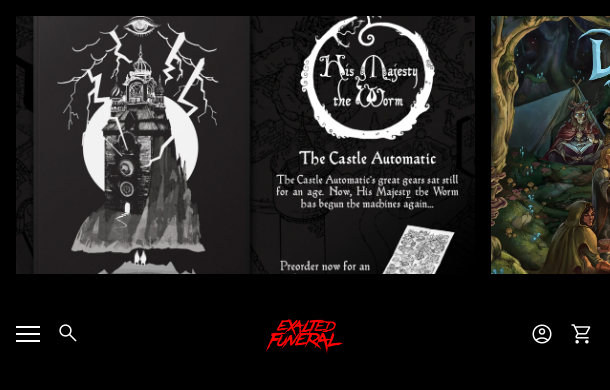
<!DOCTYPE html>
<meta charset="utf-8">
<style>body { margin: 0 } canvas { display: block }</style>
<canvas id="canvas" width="610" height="390"></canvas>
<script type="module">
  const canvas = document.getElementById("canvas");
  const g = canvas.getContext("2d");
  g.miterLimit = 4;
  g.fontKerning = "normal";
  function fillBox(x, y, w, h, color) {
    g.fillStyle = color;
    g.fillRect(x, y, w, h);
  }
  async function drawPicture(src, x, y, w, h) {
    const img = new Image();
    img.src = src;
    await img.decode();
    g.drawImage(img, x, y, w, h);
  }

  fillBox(0, 0, 610, 390, "#000000");
  await drawPicture("pic1.png", 16, 16, 459, 258);
  await drawPicture("pic2.png", 491, 16, 119, 258);
  fillBox(16, 326, 24, 2, "#FFFFFF");
  fillBox(16, 333, 24, 2, "#FFFFFF");
  fillBox(16, 340, 24, 2, "#FFFFFF");
  await drawPicture("pic3.png", 59, 324, 18, 18);
  await drawPicture("pic4.png", 266, 319, 78, 35);
  await drawPicture("pic5.png", 532, 324, 20, 20);
  await drawPicture("pic6.png", 571, 324, 20, 20);
</script>
